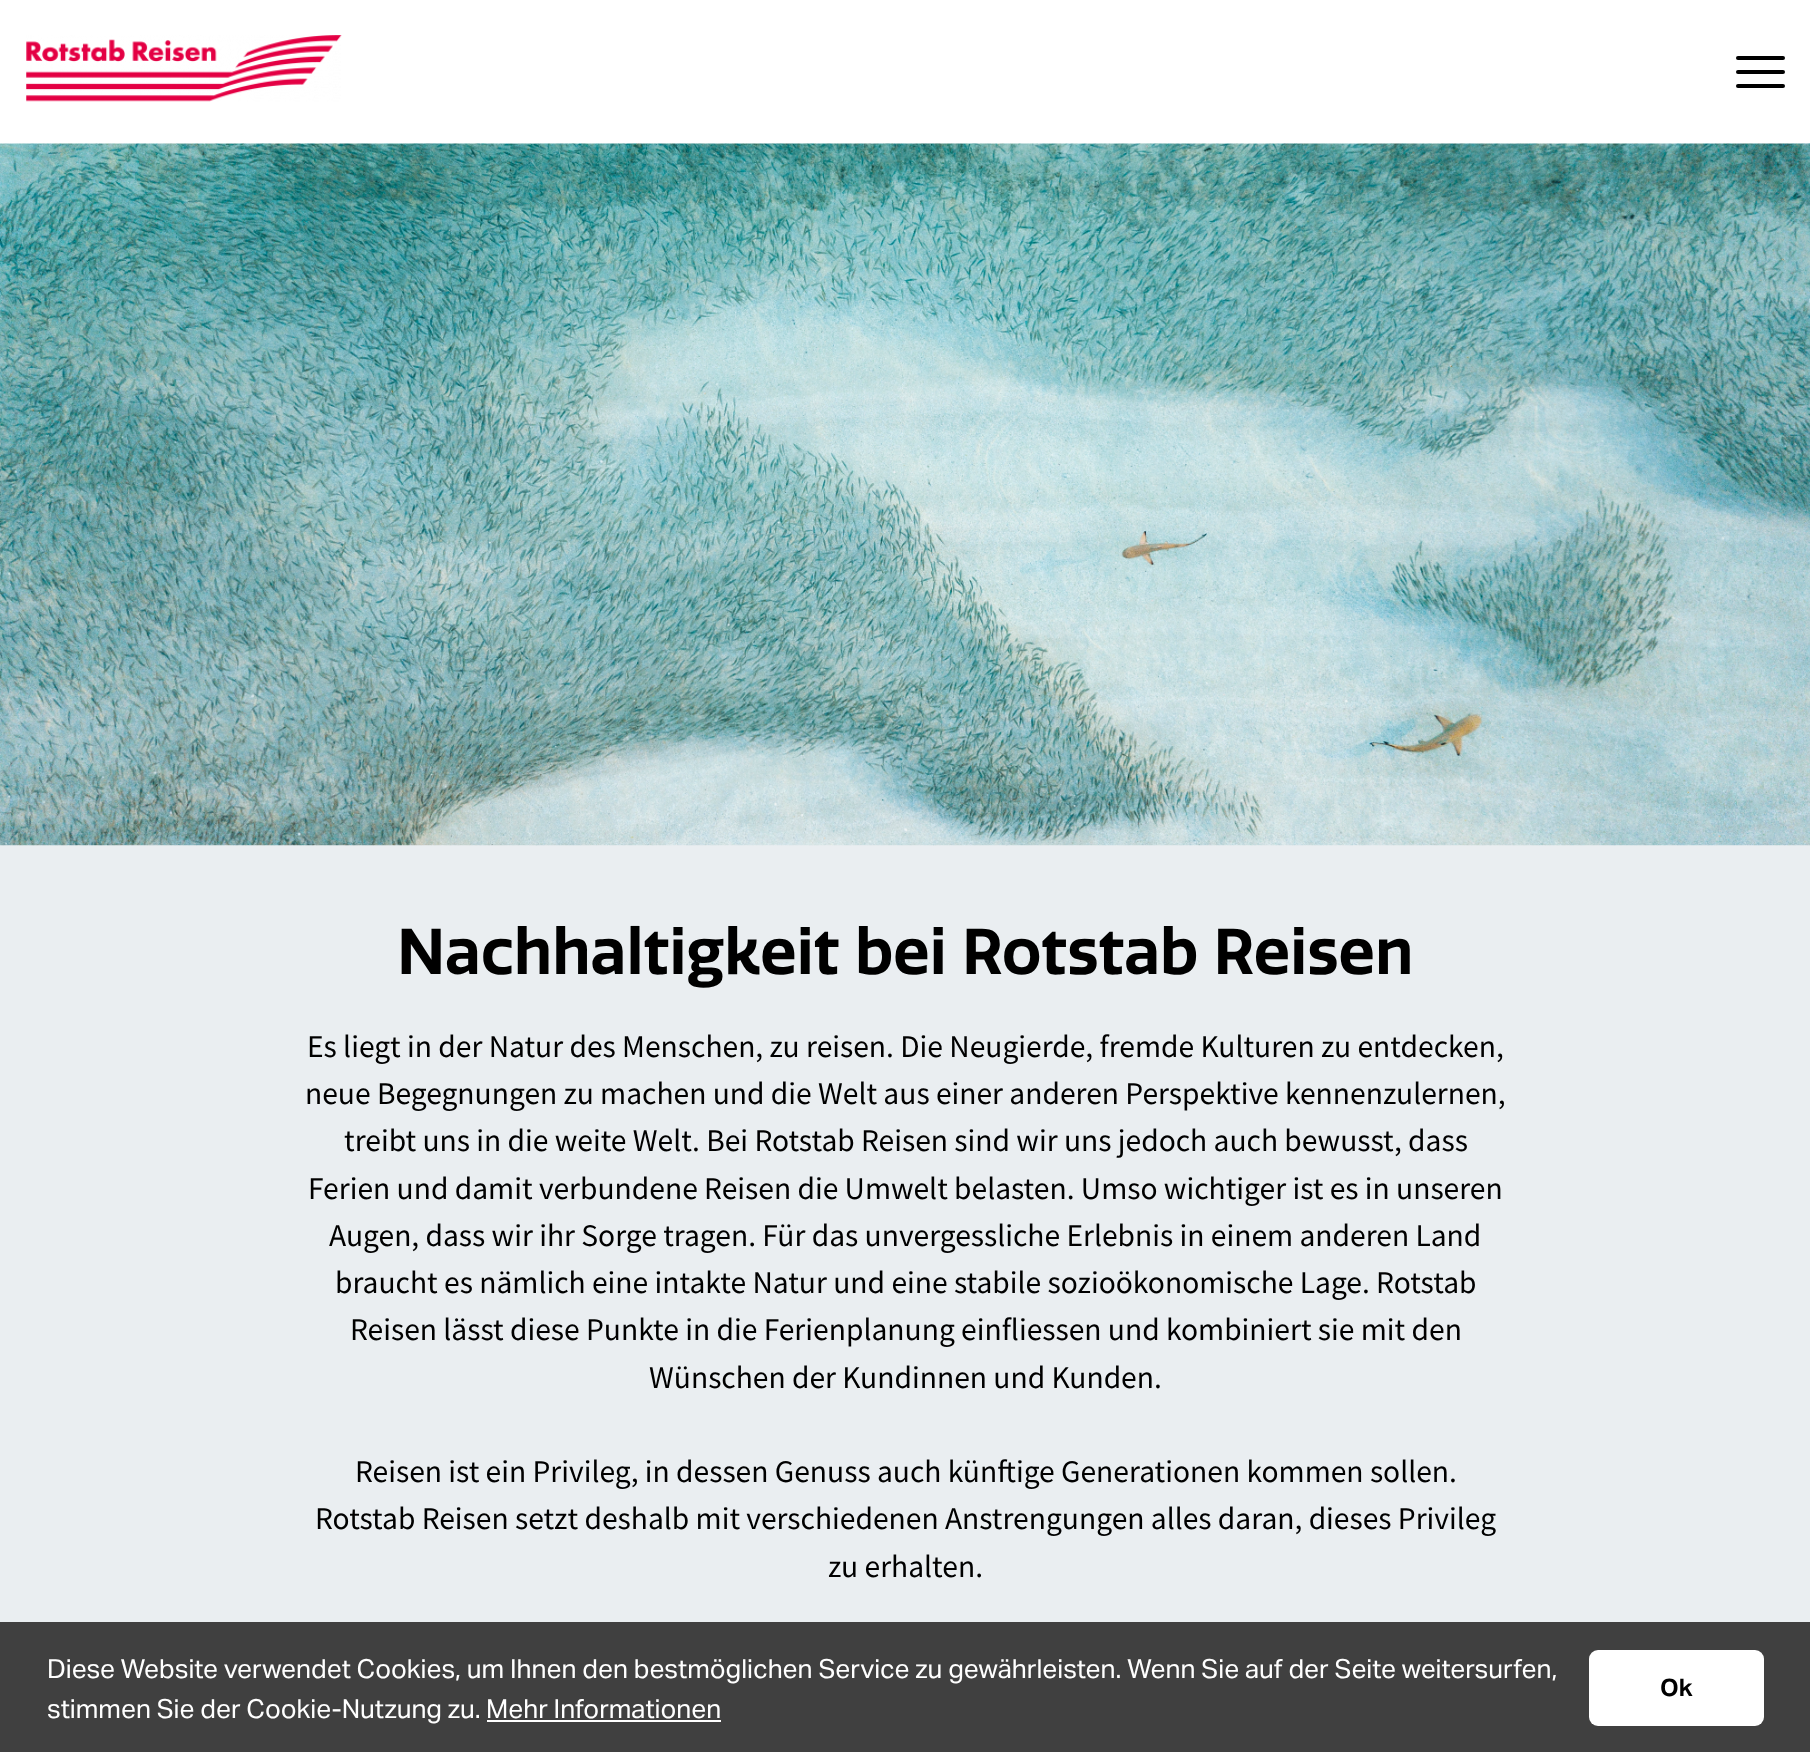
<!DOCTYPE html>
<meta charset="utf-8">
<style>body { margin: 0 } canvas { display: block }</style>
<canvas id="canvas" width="1810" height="1752"></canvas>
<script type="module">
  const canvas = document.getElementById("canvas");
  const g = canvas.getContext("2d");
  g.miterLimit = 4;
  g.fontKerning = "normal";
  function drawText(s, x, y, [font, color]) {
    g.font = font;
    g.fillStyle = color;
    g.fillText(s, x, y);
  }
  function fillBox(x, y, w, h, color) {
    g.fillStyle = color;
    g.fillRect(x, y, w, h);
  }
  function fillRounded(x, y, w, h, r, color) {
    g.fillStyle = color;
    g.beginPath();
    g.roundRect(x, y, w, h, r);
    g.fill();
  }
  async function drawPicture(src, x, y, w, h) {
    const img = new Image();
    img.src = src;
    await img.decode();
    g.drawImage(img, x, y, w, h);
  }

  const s1 = ["600 63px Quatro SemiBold", "#000000"];
  const s2 = ["31.5px Source Sans Pro", "#000000"];
  const s3 = ["26.25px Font", "#FFFFFF"];
  const s4 = ["bold 24px Font", "#000000"];

  fillBox(0, 0, 1810, 1752, "#FFFFFF");
  await drawPicture("pic1.png", 26, 35, 316, 67);
  fillRounded(1736, 56, 49, 4, 2, "#000000");
  fillRounded(1736, 70, 49, 4, 2, "#000000");
  fillRounded(1736, 84, 49, 4, 2, "#000000");
  fillBox(0, 845, 1810, 777, "#EAEEF1");
  await drawPicture("pic2.png", 0, 143, 1810, 703);
  drawText("Nachhaltigkeit bei Rotstab Reisen", 397, 974, s1);
  drawText("Es liegt in der Natur des Menschen, zu reisen. Die Neugierde, fremde Kulturen zu entdecken,", 307, 1057, s2);
  drawText("neue Begegnungen zu machen und die Welt aus einer anderen Perspektive kennenzulernen,", 305, 1104, s2);
  drawText("treibt uns in die weite Welt. Bei Rotstab Reisen sind wir uns jedoch auch bewusst, dass", 344, 1151, s2);
  drawText("Ferien und damit verbundene Reisen die Umwelt belasten. Umso wichtiger ist es in unseren", 308, 1199, s2);
  drawText("Augen, dass wir ihr Sorge tragen. Für das unvergessliche Erlebnis in einem anderen Land", 329, 1246, s2);
  drawText("braucht es nämlich eine intakte Natur und eine stabile sozioökonomische Lage. Rotstab", 335, 1293, s2);
  drawText("Reisen lässt diese Punkte in die Ferienplanung einfliessen und kombiniert sie mit den", 350, 1340, s2);
  drawText("Wünschen der Kundinnen und Kunden.", 649, 1388, s2);
  drawText("Reisen ist ein Privileg, in dessen Genuss auch künftige Generationen kommen sollen.", 355, 1482, s2);
  drawText("Rotstab Reisen setzt deshalb mit verschiedenen Anstrengungen alles daran, dieses Privileg", 315, 1529, s2);
  drawText("zu erhalten.", 828, 1577, s2);
  fillBox(0, 1622, 1810, 130, "#404040");
  drawText("Diese Website verwendet Cookies, um Ihnen den bestmöglichen Service zu gewährleisten. Wenn Sie auf der Seite weitersurfen,", 47, 1678, s3);
  drawText("stimmen Sie der Cookie-Nutzung zu.", 47, 1718, s3);
  drawText("Mehr Informationen", 486, 1718, s3);
  fillBox(487, 1720, 234, 2, "#FFFFFF");
  fillRounded(1589, 1650, 175, 76, 9, "#FFFFFF");
  drawText("Ok", 1660, 1696, s4);
</script>
